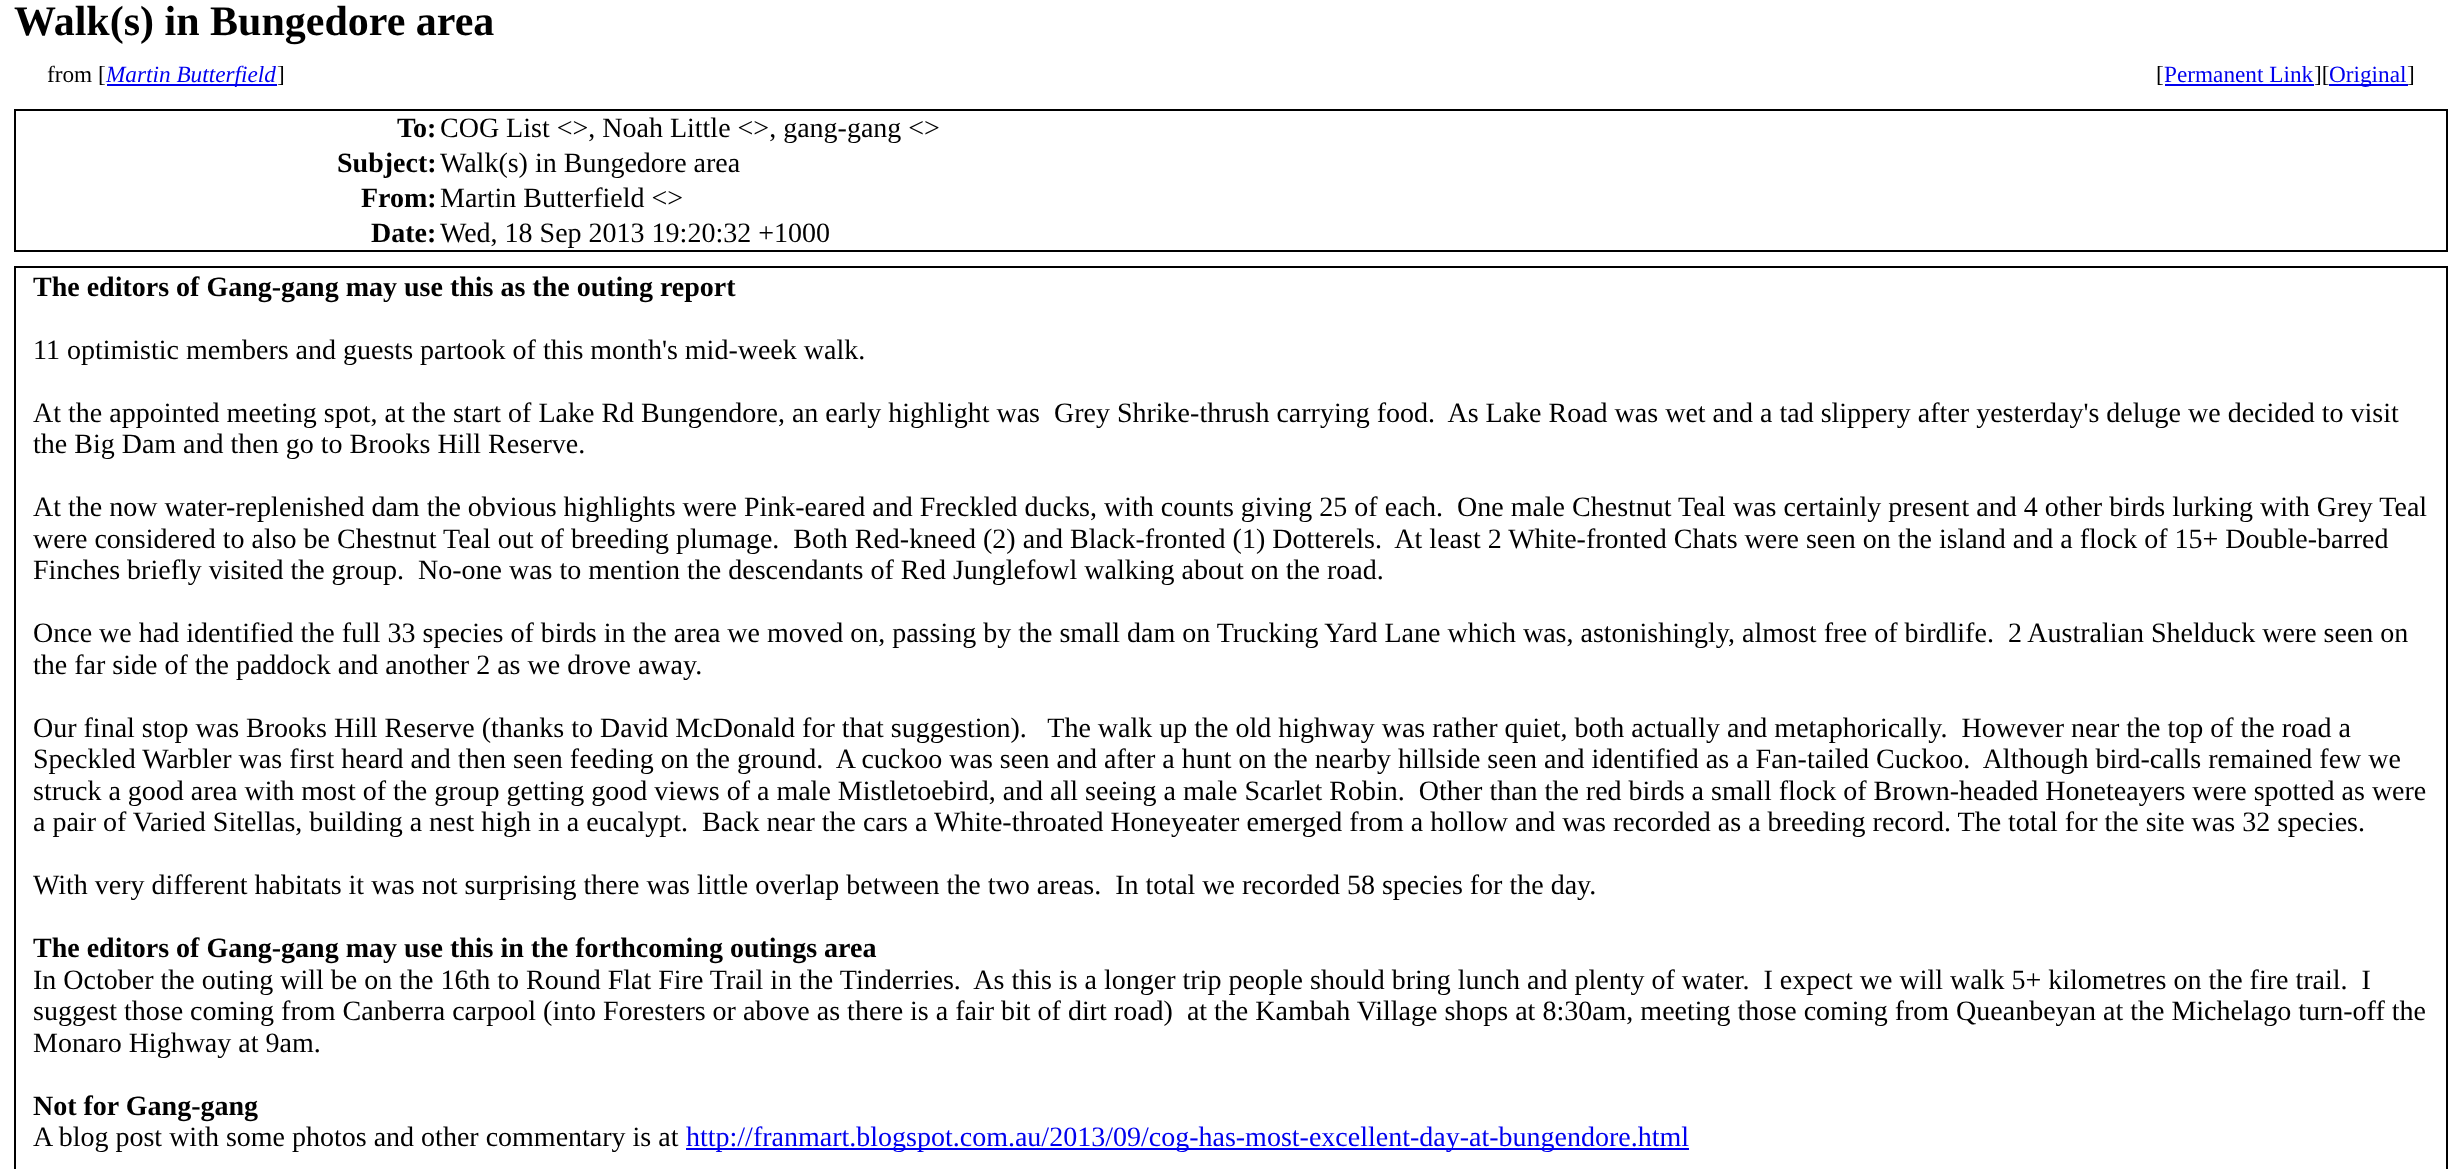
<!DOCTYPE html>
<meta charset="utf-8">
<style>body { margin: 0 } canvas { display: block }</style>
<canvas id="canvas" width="2462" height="1169"></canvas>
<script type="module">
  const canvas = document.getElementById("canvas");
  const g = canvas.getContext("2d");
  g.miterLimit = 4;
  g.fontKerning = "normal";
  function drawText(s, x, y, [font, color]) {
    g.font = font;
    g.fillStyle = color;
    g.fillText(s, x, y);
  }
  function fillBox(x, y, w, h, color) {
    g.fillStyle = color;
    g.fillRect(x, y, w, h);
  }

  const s1 = ["bold 42px Liberation Serif", "#000000"];
  const s2 = ["23.25px Liberation Serif", "#000000"];
  const s3 = ["italic 23.25px Liberation Serif", "#0000EE"];
  const s4 = ["23.25px Liberation Serif", "#0000EE"];
  const s5 = ["bold 28px Liberation Serif", "#000000"];
  const s6 = ["28px Liberation Serif", "#000000"];
  const s7 = ["28px Liberation Serif", "#0000EE"];

  fillBox(0, 0, 2462, 1169, "#FFFFFF");
  drawText("Walk(s) in Bungedore area", 14, 35, s1);
  drawText("from [", 47, 82, s2);
  fillBox(107, 84, 170, 2, "#0000EE");
  drawText("Martin Butterfield", 106, 82, s3);
  drawText("]", 277, 82, s2);
  drawText("[", 2156, 82, s2);
  drawText("Permanent Link", 2164, 82, s4);
  drawText("][", 2314, 82, s2);
  fillBox(2165, 84, 149, 2, "#0000EE");
  fillBox(2329, 84, 79, 2, "#0000EE");
  drawText("Original", 2329, 82, s4);
  drawText("]", 2407, 82, s2);
  g.strokeStyle = "#000000";
  g.lineWidth = 2;
  g.strokeRect(15, 110, 2432, 141);
  drawText("To:", 397, 137, s5);
  drawText("COG List <>, Noah Little <>, gang-gang <>", 440, 137, s6);
  drawText("Subject:", 337, 172, s5);
  drawText("Walk(s) in Bungedore area", 440, 172, s6);
  drawText("From:", 361, 207, s5);
  drawText("Martin Butterfield <>", 440, 207, s6);
  drawText("Date:", 371, 242, s5);
  drawText("Wed, 18 Sep 2013 19:20:32 +1000", 440, 242, s6);
  g.strokeRect(15, 267, 2432, 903);
  drawText("The editors of Gang-gang may use this as the outing report", 33, 296, s5);
  drawText("11 optimistic members and guests partook of this month's mid-week walk.", 33, 359, s6);
  drawText("At the appointed meeting spot, at the start of Lake Rd Bungendore, an early highlight was  Grey Shrike-thrush carrying food.  As Lake Road was wet and a tad slippery after yesterday's deluge we decided to visit", 33, 422, s6);
  drawText("the Big Dam and then go to Brooks Hill Reserve.", 33, 453, s6);
  drawText("At the now water-replenished dam the obvious highlights were Pink-eared and Freckled ducks, with counts giving 25 of each.  One male Chestnut Teal was certainly present and 4 other birds lurking with Grey Teal", 33, 516, s6);
  drawText("were considered to also be Chestnut Teal out of breeding plumage.  Both Red-kneed (2) and Black-fronted (1) Dotterels.  At least 2 White-fronted Chats were seen on the island and a flock of 15+ Double-barred", 33, 548, s6);
  drawText("Finches briefly visited the group.  No-one was to mention the descendants of Red Junglefowl walking about on the road.", 33, 579, s6);
  drawText("Once we had identified the full 33 species of birds in the area we moved on, passing by the small dam on Trucking Yard Lane which was, astonishingly, almost free of birdlife.  2 Australian Shelduck were seen on", 33, 642, s6);
  drawText("the far side of the paddock and another 2 as we drove away.", 33, 674, s6);
  drawText("Our final stop was Brooks Hill Reserve (thanks to David McDonald for that suggestion).   The walk up the old highway was rather quiet, both actually and metaphorically.  However near the top of the road a", 33, 737, s6);
  drawText("Speckled Warbler was first heard and then seen feeding on the ground.  A cuckoo was seen and after a hunt on the nearby hillside seen and identified as a Fan-tailed Cuckoo.  Although bird-calls remained few we", 33, 768, s6);
  drawText("struck a good area with most of the group getting good views of a male Mistletoebird, and all seeing a male Scarlet Robin.  Other than the red birds a small flock of Brown-headed Honeteayers were spotted as were", 33, 800, s6);
  drawText("a pair of Varied Sitellas, building a nest high in a eucalypt.  Back near the cars a White-throated Honeyeater emerged from a hollow and was recorded as a breeding record. The total for the site was 32 species.", 33, 831, s6);
  drawText("With very different habitats it was not surprising there was little overlap between the two areas.  In total we recorded 58 species for the day.", 33, 894, s6);
  drawText("The editors of Gang-gang may use this in the forthcoming outings area", 33, 957, s5);
  drawText("In October the outing will be on the 16th to Round Flat Fire Trail in the Tinderries.  As this is a longer trip people should bring lunch and plenty of water.  I expect we will walk 5+ kilometres on the fire trail.  I", 33, 989, s6);
  drawText("suggest those coming from Canberra carpool (into Foresters or above as there is a fair bit of dirt road)  at the Kambah Village shops at 8:30am, meeting those coming from Queanbeyan at the Michelago turn-off the", 33, 1020, s6);
  drawText("Monaro Highway at 9am.", 33, 1052, s6);
  drawText("Not for Gang-gang", 33, 1115, s5);
  drawText("A blog post with some photos and other commentary is at", 33, 1146, s6);
  fillBox(686, 1148, 1003, 2, "#0000EE");
  drawText("http://franmart.blogspot.com.au/2013/09/cog-has-most-excellent-day-at-bungendore.html", 686, 1146, s7);
</script>
